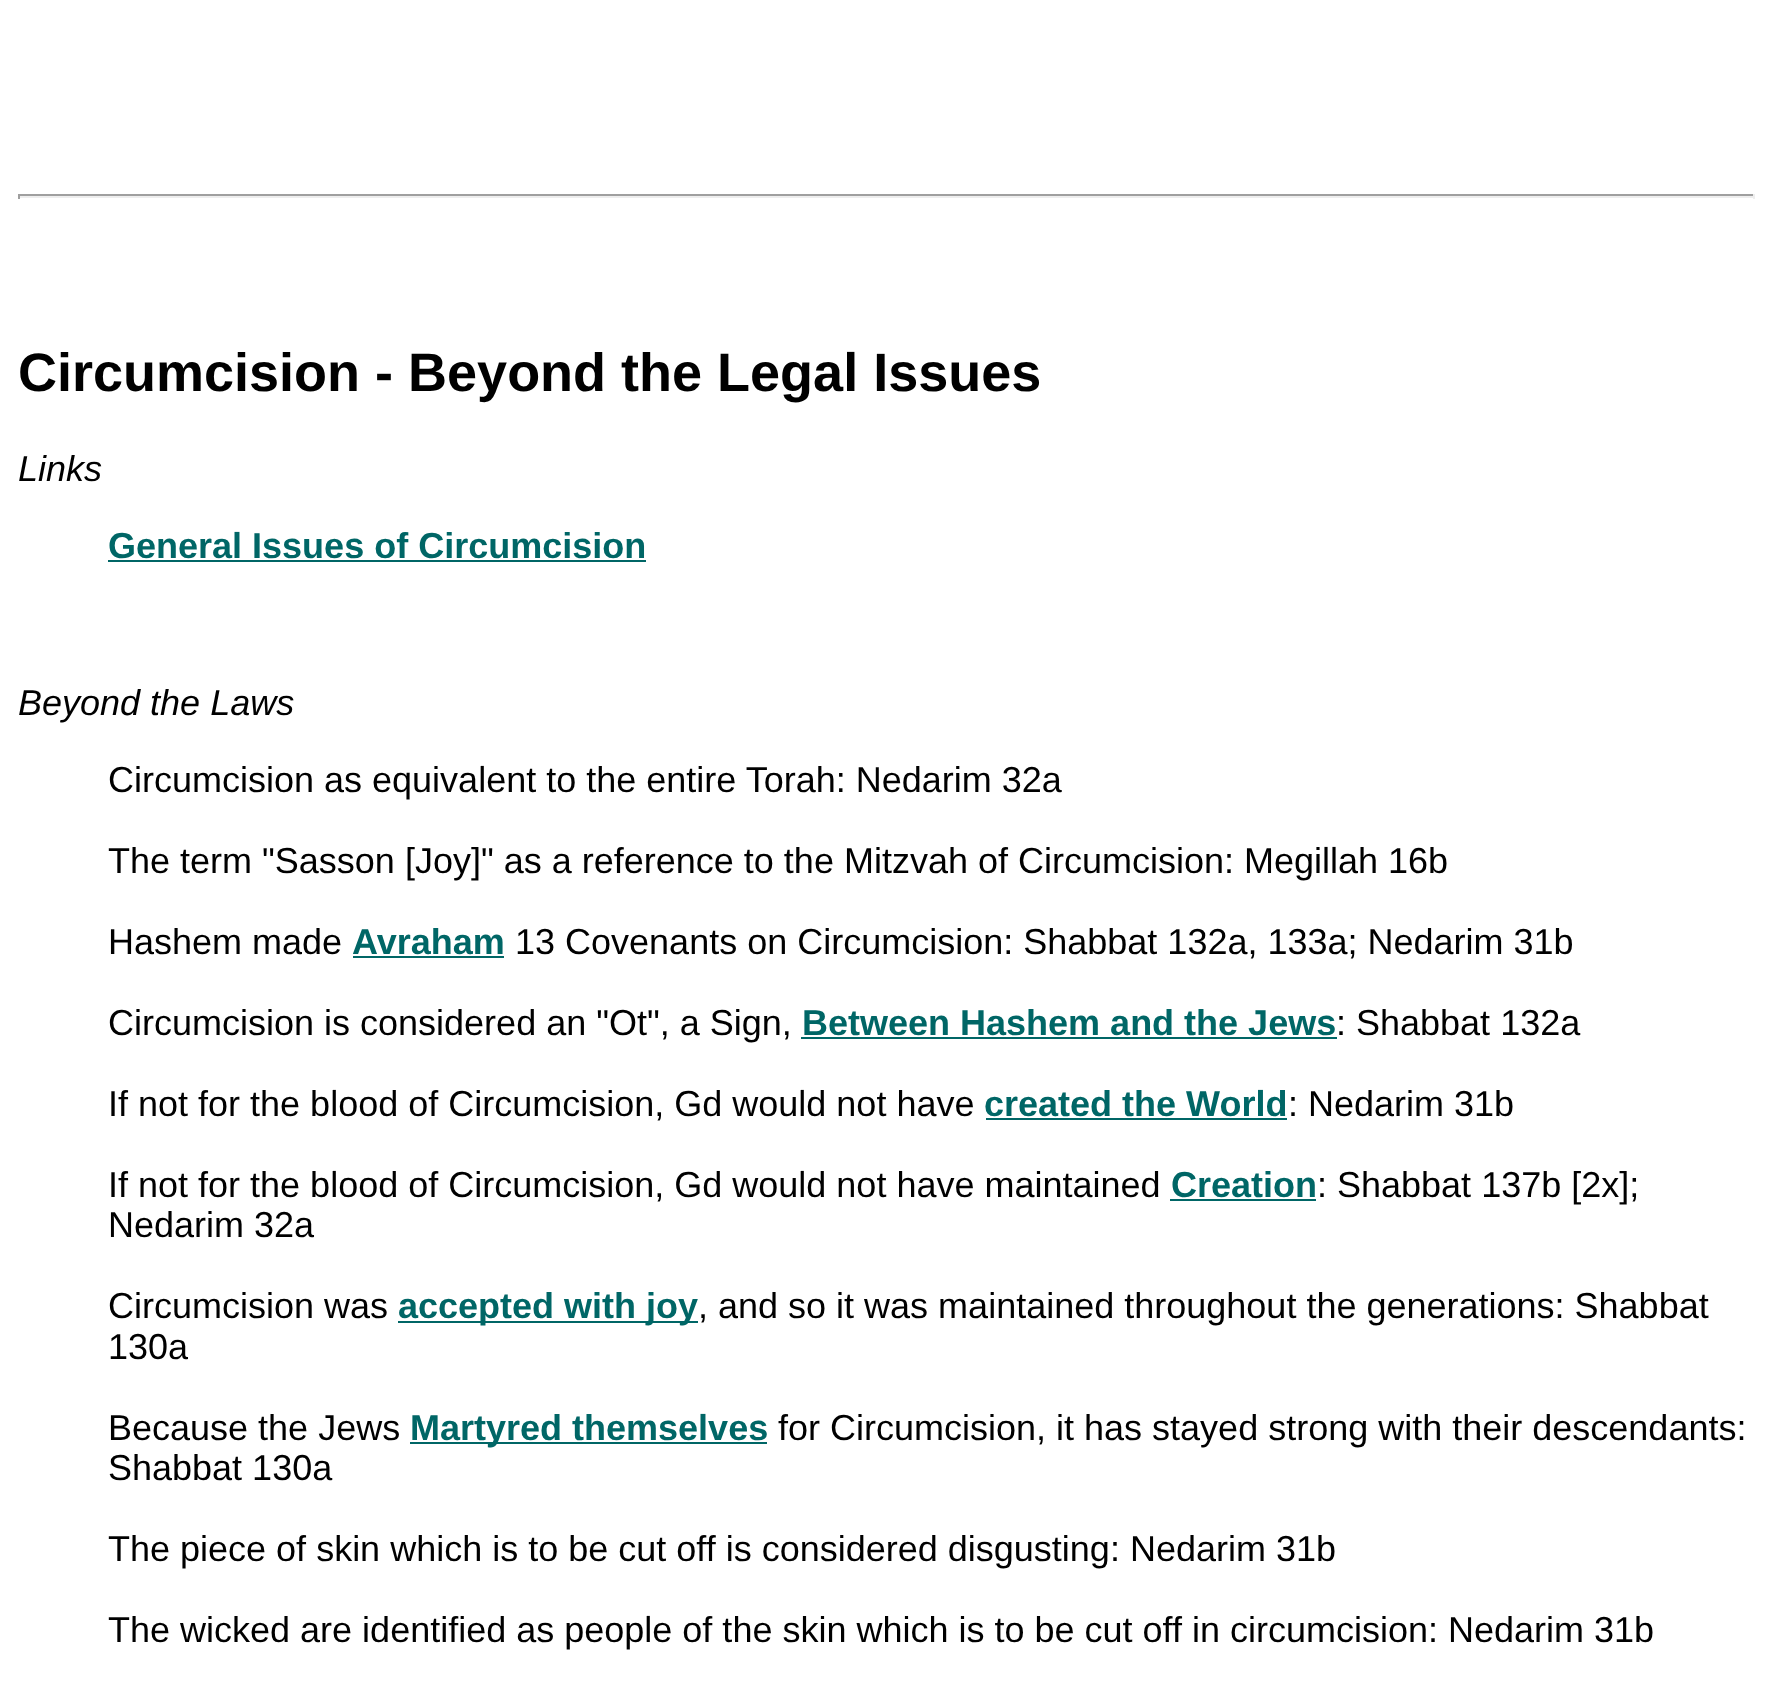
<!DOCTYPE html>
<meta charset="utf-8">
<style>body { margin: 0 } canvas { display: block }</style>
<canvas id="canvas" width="1773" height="1700"></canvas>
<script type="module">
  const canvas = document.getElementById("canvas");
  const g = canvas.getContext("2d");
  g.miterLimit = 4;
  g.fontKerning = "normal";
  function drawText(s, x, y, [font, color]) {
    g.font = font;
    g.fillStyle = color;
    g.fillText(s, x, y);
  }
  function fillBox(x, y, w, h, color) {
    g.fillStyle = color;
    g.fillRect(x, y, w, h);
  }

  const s1 = ["bold 54px Liberation Sans", "#000000"];
  const s2 = ["italic 36px Liberation Sans", "#000000"];
  const s3 = ["bold 36px Liberation Sans", "#006666"];
  const s4 = ["36px Liberation Sans", "#000000"];

  fillBox(0, 0, 1773, 1700, "#FFFFFF");
  fillBox(18, 194, 1737, 2, "#9F9F9F");
  fillBox(1753, 194, 2, 5, "#EEEEEE");
  fillBox(18, 196, 1737, 2, "#EEEEEE");
  fillBox(18, 194, 2, 5, "#9F9F9F");
  drawText("Circumcision - Beyond the Legal Issues", 18, 391, s1);
  drawText("Links", 18, 481, s2);
  drawText("General Issues of Circumcision", 108, 558, s3);
  fillBox(108, 560, 538, 2, "#006666");
  drawText("Beyond the Laws", 18, 715, s2);
  drawText("Circumcision as equivalent to the entire Torah: Nedarim 32a", 108, 792, s4);
  drawText("The term \"Sasson [Joy]\" as a reference to the Mitzvah of Circumcision: Megillah 16b", 108, 873, s4);
  drawText("Hashem made", 108, 954, s4);
  drawText("Avraham", 352, 954, s3);
  fillBox(353, 956, 151, 2, "#006666");
  drawText("13 Covenants on Circumcision: Shabbat 132a, 133a; Nedarim 31b", 515, 954, s4);
  drawText("Circumcision is considered an \"Ot\", a Sign,", 108, 1035, s4);
  drawText("Between Hashem and the Jews", 802, 1035, s3);
  fillBox(801, 1037, 536, 2, "#006666");
  drawText(": Shabbat 132a", 1336, 1035, s4);
  drawText("If not for the blood of Circumcision, Gd would not have", 108, 1116, s4);
  drawText("created the World", 984, 1116, s3);
  fillBox(986, 1118, 301, 2, "#006666");
  drawText(": Nedarim 31b", 1288, 1116, s4);
  drawText("If not for the blood of Circumcision, Gd would not have maintained", 108, 1197, s4);
  drawText("Creation", 1171, 1197, s3);
  fillBox(1170, 1199, 146, 2, "#006666");
  drawText(": Shabbat 137b [2x];", 1317, 1197, s4);
  drawText("Nedarim 32a", 108, 1237, s4);
  drawText("Circumcision was", 108, 1318, s4);
  fillBox(398, 1321, 300, 2, "#006666");
  drawText("accepted with joy", 398, 1318, s3);
  drawText(", and so it was maintained throughout the generations: Shabbat", 698, 1318, s4);
  drawText("130a", 108, 1359, s4);
  drawText("Because the Jews", 108, 1440, s4);
  fillBox(410, 1442, 357, 2, "#006666");
  drawText("Martyred themselves", 410, 1440, s3);
  drawText("for Circumcision, it has stayed strong with their descendants:", 778, 1440, s4);
  drawText("Shabbat 130a", 108, 1480, s4);
  drawText("The piece of skin which is to be cut off is considered disgusting: Nedarim 31b", 108, 1561, s4);
  drawText("The wicked are identified as people of the skin which is to be cut off in circumcision: Nedarim 31b", 108, 1642, s4);
</script>
